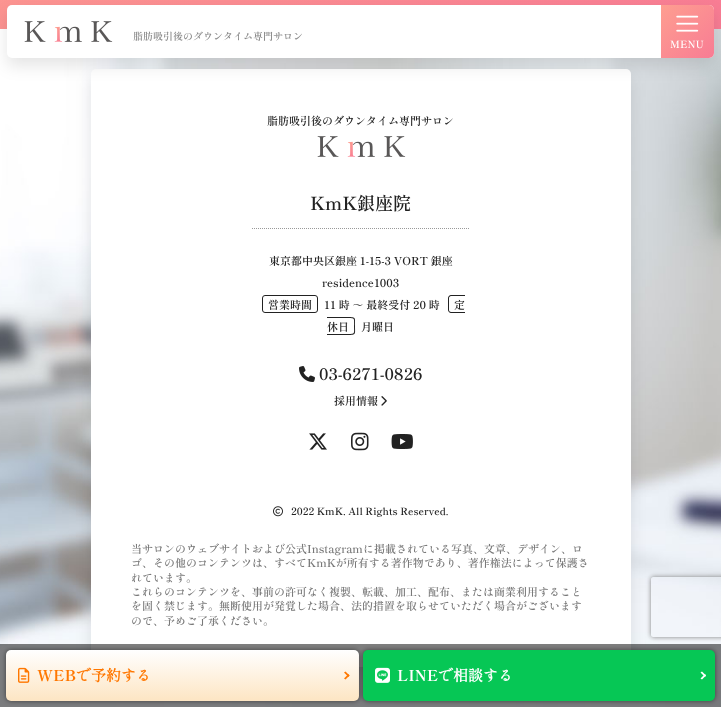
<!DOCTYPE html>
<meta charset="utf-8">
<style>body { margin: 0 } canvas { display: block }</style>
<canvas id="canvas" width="721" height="707"></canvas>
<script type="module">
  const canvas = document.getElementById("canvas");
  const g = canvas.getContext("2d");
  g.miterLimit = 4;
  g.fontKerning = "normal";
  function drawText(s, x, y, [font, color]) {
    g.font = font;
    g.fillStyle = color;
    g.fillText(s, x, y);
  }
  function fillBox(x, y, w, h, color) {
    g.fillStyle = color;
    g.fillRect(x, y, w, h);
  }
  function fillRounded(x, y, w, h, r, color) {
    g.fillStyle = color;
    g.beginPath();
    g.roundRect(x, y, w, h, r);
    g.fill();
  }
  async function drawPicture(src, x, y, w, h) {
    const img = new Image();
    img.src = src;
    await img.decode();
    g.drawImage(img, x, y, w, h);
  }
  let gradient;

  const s1 = ["600 10px Shippori Mincho", "#888888"];
  const s2 = ["600 10px Shippori Mincho", "#FFFFFF"];
  const s3 = ["600 11px Shippori Mincho", "#222222"];
  const s4 = ["600 18px Shippori Mincho", "#222222"];
  const s5 = ["600 16px Shippori Mincho", "#222222"];
  const s6 = ["600 10px Shippori Mincho", "#222222"];
  const s7 = ["600 11px Shippori Mincho", "#797979"];
  const s8 = ["bold 15px Shippori Mincho", "#FF7700"];
  const s9 = ["bold 15px 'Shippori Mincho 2'", "#FF7700"];
  const s10 = ["bold 15px Shippori Mincho", "#FFFFFF"];
  const s11 = ["bold 15px 'Shippori Mincho 2'", "#FFFFFF"];

  fillBox(0, 0, 721, 707, "#FFFFFF");
  gradient = g.createLinearGradient(99, -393, 622, 129);
  gradient.addColorStop(0, "#FE9E90");
  gradient.addColorStop(1, "#F87C94");
  g.fillStyle = gradient;
  g.fillRect(0, 0, 721, 29);
  await drawPicture("pic3.png", 0, 29, 721, 678);
  g.fillStyle = "rgba(0, 0, 0, 0.1)";
  g.filter = "blur(8px)";
  g.beginPath();
  g.roundRect(91, 77, 540, 598, 5);
  g.fill();
  g.filter = "none";
  fillRounded(91, 69, 540, 598, 5, "#FFFFFF");
  g.fillStyle = "rgba(0, 0, 0, 0.1)";
  g.filter = "blur(8px)";
  g.beginPath();
  g.roundRect(7, 13, 707, 53, 5);
  g.fill();
  g.filter = "none";
  fillRounded(7, 5, 707, 53, 5, "#FFFFFF");
  await drawPicture("pic1.png", 24, 21, 89, 21);
  drawText("脂肪吸引後のダウンタイム専門サロン", 133, 40, s1);
  gradient = g.createLinearGradient(661, 5, 714, 58);
  gradient.addColorStop(0, "#FE9E90");
  gradient.addColorStop(1, "#F87C94");
  g.fillStyle = gradient;
  g.beginPath();
  g.roundRect(661, 5, 53, 53, [0, 5, 5, 0]);
  g.fill();
  await drawPicture("pic2.png", 676, 15, 23, 17);
  drawText("MENU", 670, 48, s2);
  drawText("脂肪吸引後のダウンタイム専門サロン", 267, 125, s3);
  await drawPicture("pic1.png", 317, 136, 89, 21);
  g.beginPath();
  g.moveTo(252, 228.5);
  g.lineTo(470, 228.5);
  g.strokeStyle = "#999999";
  g.setLineDash([1, 1]);
  g.stroke();
  drawText("KmK銀座院", 310, 210, s4);
  drawText("東京都中央区銀座 1-15-3 VORT 銀座", 269, 265, s3);
  drawText("residence1003", 322, 287, s3);
  g.beginPath();
  g.roundRect(262.5, 295.5, 55, 17, 2.5);
  g.strokeStyle = "#222222";
  g.setLineDash([]);
  g.stroke();
  drawText("営業時間", 268, 309, s3);
  drawText("11 時 ～ 最終受付 20 時", 324, 309, s3);
  g.beginPath();
  g.moveTo(451, 295);
  g.lineTo(465, 295);
  g.lineTo(465, 313);
  g.lineTo(451, 313);
  g.bezierCurveTo(449.5, 313, 448, 311.5, 448, 310);
  g.lineTo(448, 298);
  g.bezierCurveTo(448, 296.5, 449.5, 295, 451, 295);
  g.closePath();
  g.moveTo(451, 296);
  g.lineTo(465, 296);
  g.lineTo(465, 312);
  g.lineTo(451, 312);
  g.bezierCurveTo(450, 312, 449, 311, 449, 310);
  g.lineTo(449, 298);
  g.bezierCurveTo(449, 297, 450, 296, 451, 296);
  g.closePath();
  g.fill("evenodd");
  drawText("定", 454, 309, s3);
  g.beginPath();
  g.moveTo(327, 317);
  g.lineTo(348, 317);
  g.bezierCurveTo(356.5, 317, 355, 318, 355, 326);
  g.bezierCurveTo(355, 334, 356.5, 335, 348, 335);
  g.lineTo(327, 335);
  g.closePath();
  g.moveTo(327, 318);
  g.lineTo(348, 318);
  g.bezierCurveTo(355.5, 318, 354, 318.5, 354, 326);
  g.bezierCurveTo(354, 333.5, 355.5, 334, 348, 334);
  g.lineTo(327, 334);
  g.closePath();
  g.fill("evenodd");
  drawText("休日", 327, 331, s3);
  drawText("月曜日", 361, 331, s3);
  await drawPicture("pic4.png", 299, 366, 16, 16);
  drawText("03-6271-0826", 319, 380, s5);
  drawText("採用情報", 334, 405, s3);
  await drawPicture("pic5.png", 381, 396, 6, 10);
  await drawPicture("pic6.png", 309, 433, 18, 17);
  await drawPicture("pic7.png", 351, 432, 18, 19);
  await drawPicture("pic8.png", 391, 434, 22, 15);
  await drawPicture("pic9.png", 273, 506, 10, 11);
  drawText("2022 KmK. All Rights Reserved.", 291, 515, s6);
  drawText("当サロンのウェブサイトおよび公式Instagramに掲載されている写真、文章、デザイン、ロ", 131, 553, s7);
  drawText("ゴ、その他のコンテンツは、すべてKmKが所有する著作物であり、著作権法によって保護さ", 131, 567, s7);
  drawText("れています。", 131, 582, s7);
  drawText("これらのコンテンツを、事前の許可なく複製、転載、加工、配布、または商業利用すること", 131, 596, s7);
  drawText("を固く禁じます。無断使用が発覚した場合、法的措置を取らせていただく場合がございます", 131, 610, s7);
  drawText("ので、予めご了承ください。", 131, 625, s7);
  g.save();
  g.beginPath();
  g.moveTo(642, 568);
  g.lineTo(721, 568);
  g.lineTo(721, 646);
  g.lineTo(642, 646);
  g.closePath();
  g.moveTo(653, 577);
  g.lineTo(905, 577);
  g.bezierCurveTo(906, 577, 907, 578, 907, 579);
  g.lineTo(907, 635);
  g.bezierCurveTo(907, 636, 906, 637, 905, 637);
  g.lineTo(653, 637);
  g.bezierCurveTo(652, 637, 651, 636, 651, 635);
  g.lineTo(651, 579);
  g.bezierCurveTo(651, 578, 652, 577, 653, 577);
  g.closePath();
  g.clip("evenodd");
  g.fillStyle = "#808080";
  g.filter = "blur(2.5px)";
  g.beginPath();
  g.roundRect(651, 577, 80, 60, 2);
  g.fill();
  g.filter = "none";
  g.restore();
  fillBox(0, 644, 721, 63, "rgba(0, 0, 0, 0.5)");
  g.filter = "blur(2.5px)";
  g.beginPath();
  g.roundRect(6, 650, 353, 51, 5);
  g.fill();
  g.filter = "none";
  gradient = g.createLinearGradient(183, 650, 183, 701);
  gradient.addColorStop(0, "#FFFFFF");
  gradient.addColorStop(1, "#FDE5C3");
  g.fillStyle = gradient;
  g.beginPath();
  g.roundRect(6, 650, 353, 51, 5);
  g.fill();
  await drawPicture("pic10.png", 18, 667, 12, 16);
  drawText("WEB", 37, 681, s8);
  drawText("で予約する", 76, 681, s9);
  g.beginPath();
  g.moveTo(345.5, 671.5);
  g.lineTo(349.5, 675.5);
  g.lineTo(348.5, 677);
  g.lineTo(344, 672.5);
  g.closePath();
  g.fill();
  g.beginPath();
  g.moveTo(348.5, 674);
  g.lineTo(349.5, 675.5);
  g.lineTo(345.5, 679.5);
  g.lineTo(344, 678.5);
  g.closePath();
  g.fill();
  g.fillStyle = "rgba(0, 0, 0, 0.5)";
  g.filter = "blur(2.5px)";
  g.beginPath();
  g.roundRect(363, 650, 352, 51, 5);
  g.fill();
  g.filter = "none";
  fillRounded(363, 650, 352, 51, 5, "#06C755");
  await drawPicture("pic11.png", 375, 667, 15, 16);
  drawText("LINE", 397, 681, s10);
  drawText("で相談する", 438, 681, s11);
  g.beginPath();
  g.moveTo(702, 671.5);
  g.lineTo(706, 675.5);
  g.lineTo(705, 677);
  g.lineTo(700.5, 672.5);
  g.closePath();
  g.fill();
  g.beginPath();
  g.moveTo(705, 674);
  g.lineTo(706, 675.5);
  g.lineTo(702, 679.5);
  g.lineTo(700.5, 678.5);
  g.closePath();
  g.fill();
</script>
